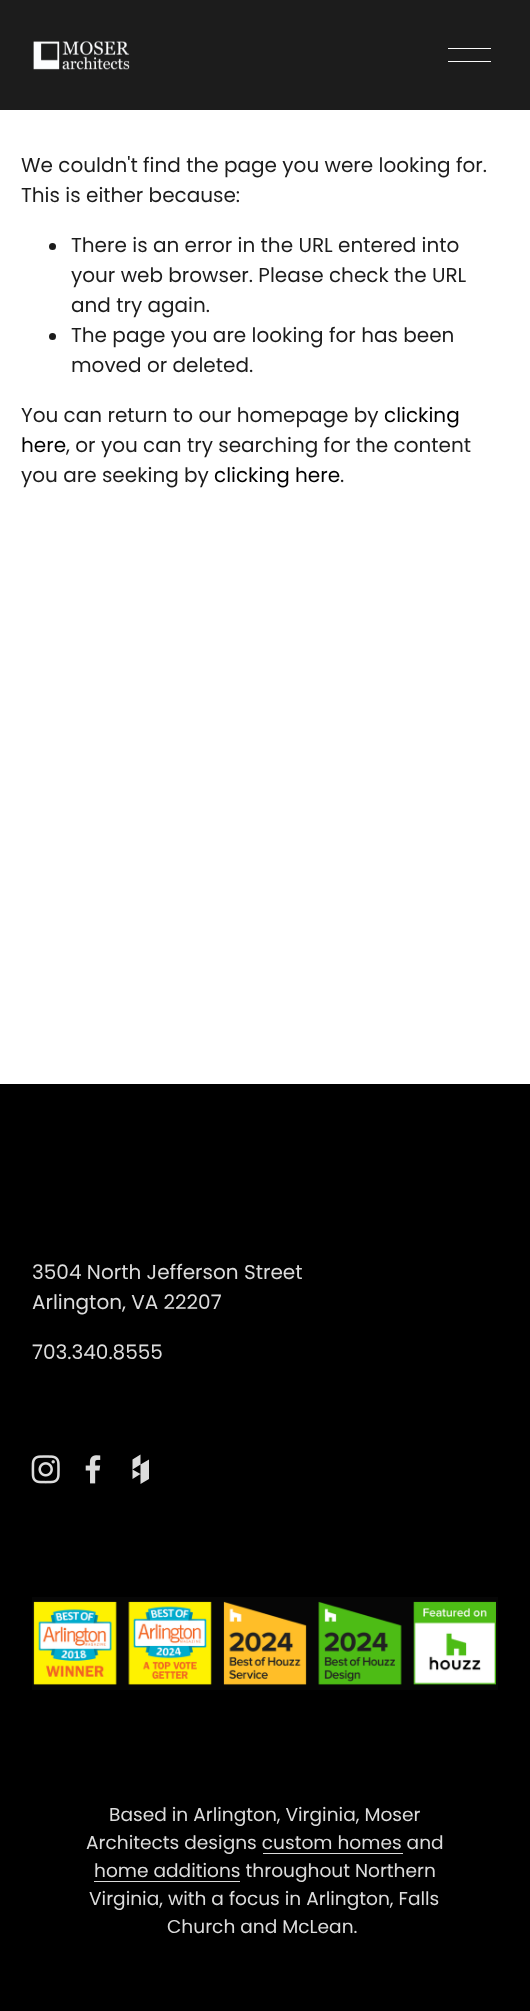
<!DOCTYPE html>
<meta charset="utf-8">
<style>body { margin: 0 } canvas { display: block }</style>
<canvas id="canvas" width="530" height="2011"></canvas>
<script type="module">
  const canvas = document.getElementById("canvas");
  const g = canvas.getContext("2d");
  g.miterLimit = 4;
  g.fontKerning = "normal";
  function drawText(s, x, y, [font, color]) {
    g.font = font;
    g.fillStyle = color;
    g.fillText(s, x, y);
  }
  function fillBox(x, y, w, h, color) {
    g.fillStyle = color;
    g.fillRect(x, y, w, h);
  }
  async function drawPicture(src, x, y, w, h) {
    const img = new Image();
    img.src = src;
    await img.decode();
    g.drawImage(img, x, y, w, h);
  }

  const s1 = ["20px Poppins", "#1C1C1C"];
  const s2 = ["20px Poppins", "#000000"];
  const s3 = ["20px Poppins", "#DCDCDC"];
  const s4 = ["18.6px Poppins", "#DCDCDC"];

  fillBox(0, 0, 530, 2011, "#FFFFFF");
  fillBox(0, 0, 530, 110, "#1C1C1C");
  await drawPicture("pic1.png", 33, 40, 97, 30);
  fillBox(448, 48, 43, 1, "#FAFAFA");
  fillBox(448, 61, 43, 1, "#FAFAFA");
  drawText("We couldn't find the page you were looking for.", 21, 172, s1);
  drawText("This is either because:", 21, 202, s1);
  g.beginPath();
  g.arc(52.5, 246.5, 3.5, 0, Math.PI * 2);
  g.fill();
  drawText("There is an error in the URL entered into", 71, 252, s1);
  drawText("your web browser. Please check the URL", 71, 282, s1);
  drawText("and try again.", 71, 312, s1);
  g.beginPath();
  g.arc(52.5, 336.5, 3.5, 0, Math.PI * 2);
  g.fill();
  drawText("The page you are looking for has been", 71, 342, s1);
  drawText("moved or deleted.", 71, 372, s1);
  drawText("You can return to our homepage by", 21, 422, s1);
  drawText("clicking", 384, 422, s2);
  drawText("here", 21, 452, s2);
  drawText(", or you can try searching for the content", 66, 452, s1);
  drawText("you are seeking by", 21, 482, s1);
  drawText("clicking here", 214, 482, s2);
  drawText(".", 340, 482, s1);
  fillBox(0, 1084, 530, 927, "#000000");
  drawText("3504 North Jefferson Street", 32, 1279, s3);
  drawText("Arlington, VA 22207", 32, 1309, s3);
  drawText("703.340.8555", 32, 1359, s3);
  await drawPicture("pic2.png", 31, 1455, 29, 29);
  await drawPicture("pic3.png", 85, 1455, 16, 29);
  g.beginPath();
  g.moveTo(132.5, 1479);
  g.lineTo(140.5, 1474);
  g.lineTo(132.5, 1469.5);
  g.lineTo(140.5, 1464.5);
  g.lineTo(140.5, 1484);
  g.lineTo(149, 1479);
  g.lineTo(149, 1459.5);
  g.lineTo(140.5, 1464.5);
  g.lineTo(140.5, 1454.5);
  g.lineTo(132.5, 1459.5);
  g.closePath();
  g.fill();
  await drawPicture("pic4.png", 32, 1597, 466, 93);
  drawText("Based in Arlington, Virginia, Moser", 109, 1821, s4);
  drawText("Architects designs custom homes and", 86, 1849, s4);
  fillBox(263, 1853, 140, 1, "#DCDCDC");
  fillBox(94, 1881, 146, 1, "#DCDCDC");
  drawText("home additions throughout Northern", 94, 1877, s4);
  drawText("Virginia, with a focus in Arlington, Falls", 89, 1905, s4);
  drawText("Church and McLean.", 167, 1933, s4);
</script>
